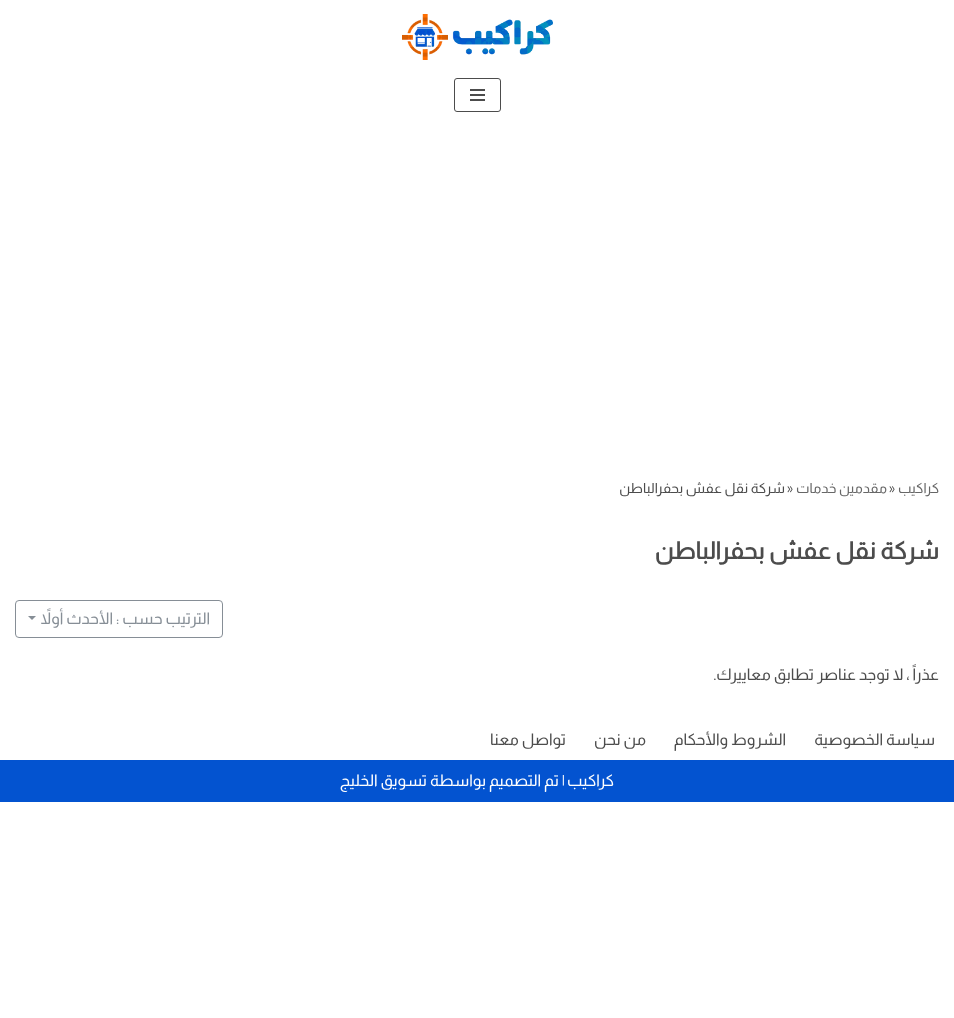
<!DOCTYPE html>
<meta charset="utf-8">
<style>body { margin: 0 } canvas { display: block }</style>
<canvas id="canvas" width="954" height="1018"></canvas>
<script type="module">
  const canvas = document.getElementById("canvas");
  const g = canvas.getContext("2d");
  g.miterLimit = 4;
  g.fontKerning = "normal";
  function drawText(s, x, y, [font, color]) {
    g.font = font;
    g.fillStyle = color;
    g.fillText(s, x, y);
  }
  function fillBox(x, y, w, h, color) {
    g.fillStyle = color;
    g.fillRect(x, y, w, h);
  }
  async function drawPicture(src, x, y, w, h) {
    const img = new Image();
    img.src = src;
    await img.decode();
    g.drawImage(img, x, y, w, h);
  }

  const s1 = ["14px Almarai", "#676767"];
  const s2 = ["14px Almarai", "#4C4C4C"];
  const s3 = ["bold 24px Almarai", "#4C4C4C"];
  const s4 = ["16px Almarai", "#868E96"];
  const s5 = ["16px Almarai", "#4C4C4C"];
  const s6 = ["16px Almarai", "#FFFFFF"];

  fillBox(0, 0, 954, 1018, "#FFFFFF");
  await drawPicture("pic1.png", 402, 14, 151, 46);
  g.beginPath();
  g.roundRect(454.5, 78.5, 46, 33, 2.5);
  g.strokeStyle = "#4C4C4C";
  g.stroke();
  fillBox(470, 89, 15, 2, "#4C4C4C");
  fillBox(470, 94, 15, 2, "#4C4C4C");
  fillBox(470, 99, 15, 2, "#4C4C4C");
  g.direction = "rtl";
  drawText("كراكيب", 939, 493, s1);
  g.direction = "ltr";
  drawText("»", 889, 493, s2);
  g.direction = "rtl";
  drawText("مقدمين خدمات", 887, 493, s1);
  g.direction = "ltr";
  drawText("»", 787, 493, s2);
  g.direction = "rtl";
  drawText("شركة نقل عفش بحفرالباطن", 785, 493, s2);
  drawText("شركة نقل عفش بحفرالباطن", 939, 559, s3);
  g.beginPath();
  g.roundRect(15.5, 600.5, 207, 37, 3.5);
  g.strokeStyle = "#868E96";
  g.stroke();
  drawText("الترتيب حسب : الأحدث أولاً", 210, 624, s4);
  g.beginPath();
  g.moveTo(28, 616);
  g.lineTo(36, 616);
  g.lineTo(32, 620);
  g.closePath();
  g.fill();
  drawText("عذراً ، لا توجد عناصر تطابق معاييرك.", 939, 680, s5);
  drawText("سياسة الخصوصية", 935, 745, s5);
  drawText("الشروط والأحكام", 786, 745, s5);
  drawText("من نحن", 646, 745, s5);
  drawText("تواصل معنا", 566, 745, s5);
  fillBox(0, 760, 954, 42, "#0353D0");
  drawText("كراكيب", 614, 786, s6);
  drawText("| تم التصميم بواسطة", 565, 786, s6);
  drawText("تسويق الخليج", 427, 786, s6);
</script>
